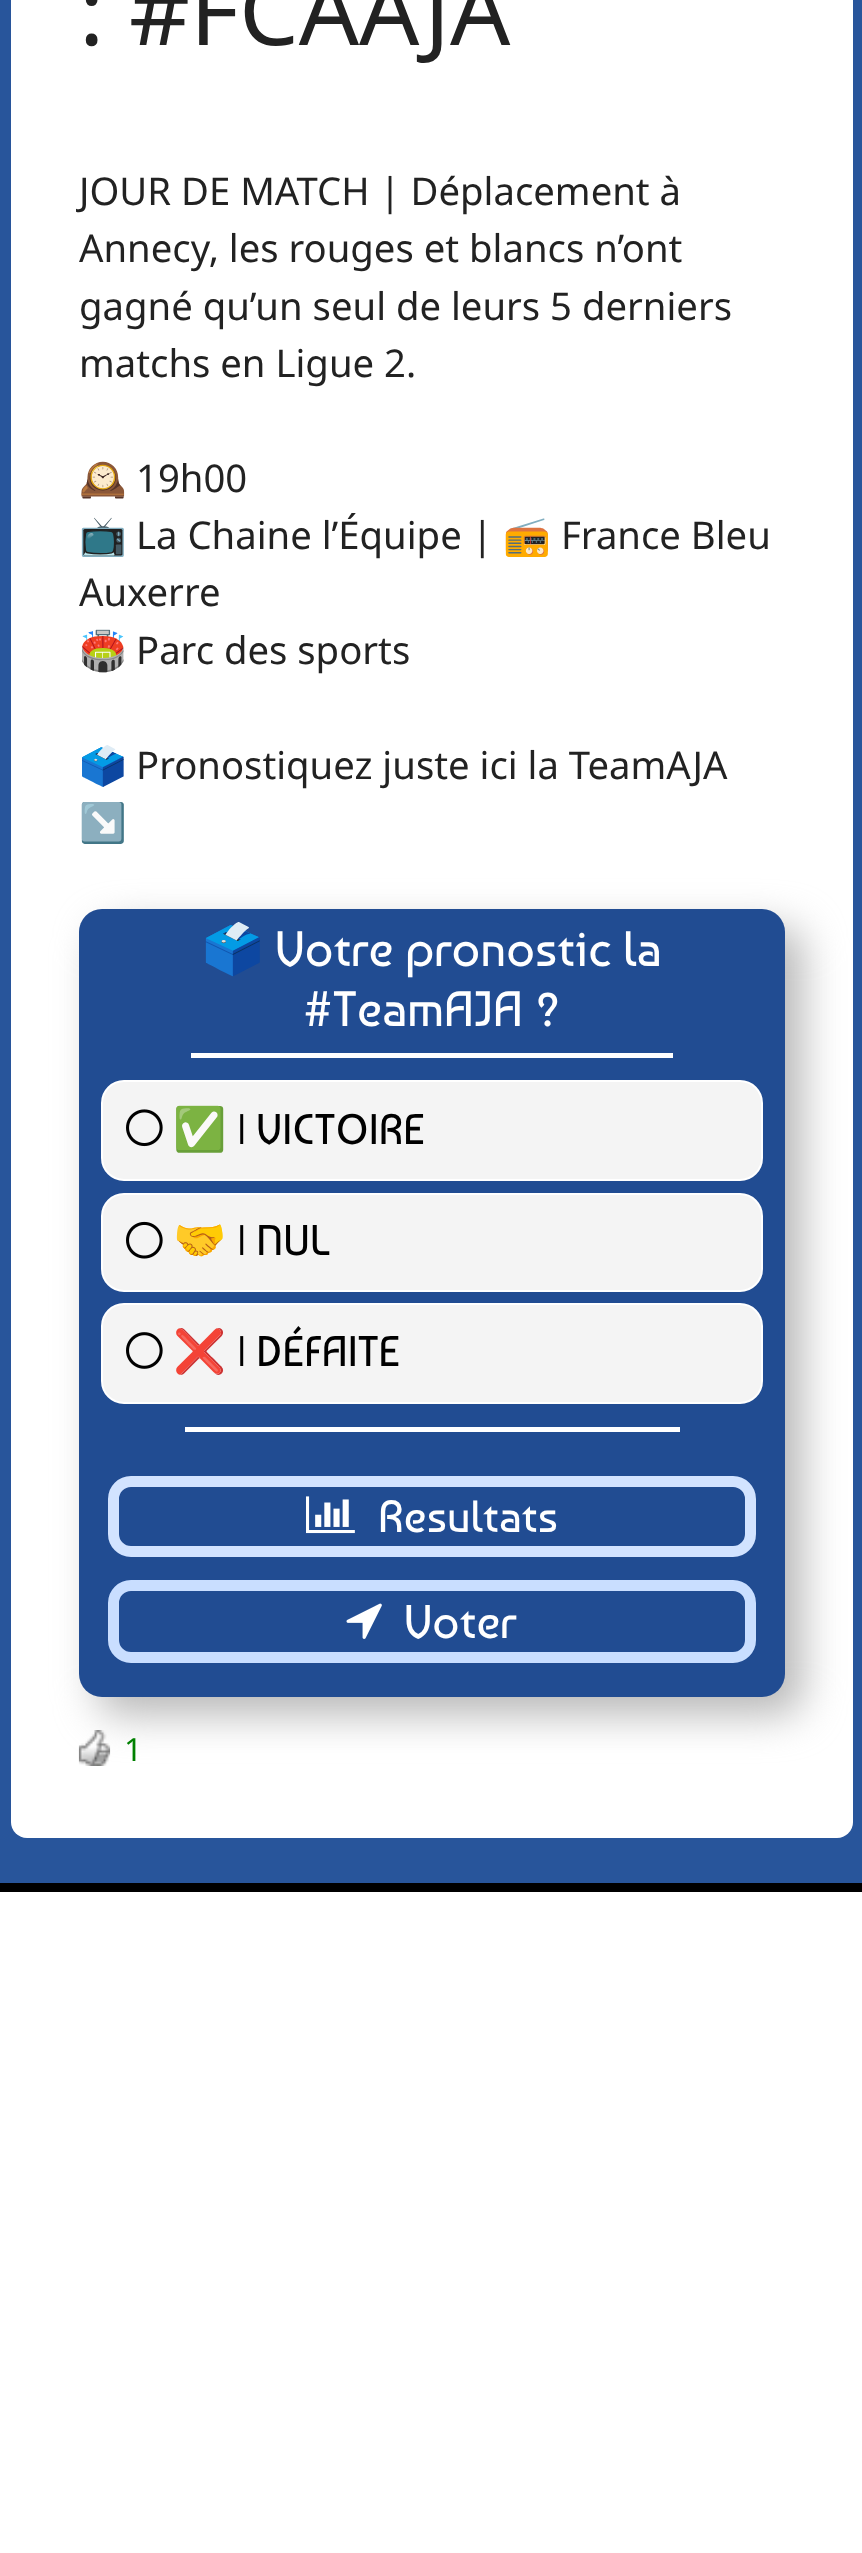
<!DOCTYPE html>
<meta charset="utf-8">
<style>body { margin: 0 } canvas { display: block }</style>
<canvas id="canvas" width="862" height="2553"></canvas>
<script type="module">
  const canvas = document.getElementById("canvas");
  const g = canvas.getContext("2d");
  g.miterLimit = 4;
  g.fontKerning = "normal";
  function drawText(s, x, y, [font, color]) {
    g.font = font;
    g.fillStyle = color;
    g.fillText(s, x, y);
  }
  function fillBox(x, y, w, h, color) {
    g.fillStyle = color;
    g.fillRect(x, y, w, h);
  }
  function fillRounded(x, y, w, h, r, color) {
    g.fillStyle = color;
    g.beginPath();
    g.roundRect(x, y, w, h, r);
    g.fill();
  }
  async function drawPicture(src, x, y, w, h) {
    const img = new Image();
    img.src = src;
    await img.decode();
    g.drawImage(img, x, y, w, h);
  }

  const s1 = ["94.5px Noto Sans", "#222222"];
  const s2 = ["38.25px Noto Sans", "#222222"];
  const s3 = ["38.25px Noto Color Emoji", "#222222"];
  const s4 = ["49.5px Noto Color Emoji", "#FFFFFF"];
  const s5 = ["49.5px Baumans", "#FFFFFF"];
  const s6 = ["42.75px Noto Color Emoji", "#000000"];
  const s7 = ["42.75px Baumans", "#000000"];
  const s8 = ["45px Baumans", "#FFFFFF"];
  const s9 = ["47px Baumans", "#FFFFFF"];
  const s10 = ["32px Noto Sans", "#008000"];

  fillBox(0, 0, 862, 2553, "#28559B");
  fillRounded(11, -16, 842, 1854, 16, "#FFFFFF");
  drawText(": #FCAAJA", 79, 45, s1);
  drawText("JOUR DE MATCH | Déplacement à", 79, 205, s2);
  drawText("Annecy, les rouges et blancs n’ont", 79, 262, s2);
  drawText("gagné qu’un seul de leurs 5 derniers", 79, 320, s2);
  drawText("matchs en Ligue 2.", 79, 377, s2);
  drawText("🕰️", 79, 492, s3);
  drawText("19h00", 136, 492, s2);
  drawText("📺", 79, 549, s3);
  drawText("La Chaine l’Équipe |", 136, 549, s2);
  drawText("📻", 503, 549, s3);
  drawText("France Bleu", 561, 549, s2);
  drawText("Auxerre", 79, 606, s2);
  drawText("🏟️", 79, 664, s3);
  drawText("Parc des sports", 136, 664, s2);
  drawText("🗳️", 79, 779, s3);
  drawText("Pronostiquez juste ici la TeamAJA", 136, 779, s2);
  drawText("↘️", 79, 836, s3);
  await drawPicture("pic6.png", 78, 1730, 33, 36);
  g.fillStyle = "#B8B8B8";
  g.filter = "blur(20px)";
  g.beginPath();
  g.roundRect(97, 927, 706, 788, 23);
  g.fill();
  g.filter = "none";
  g.fillStyle = "#214C92";
  g.beginPath();
  g.roundRect(79, 909, 706, 160, [23, 23, 0, 0]);
  g.fill();
  drawText("🗳️", 202, 966, s4);
  drawText("Votre pronostic la", 275, 966, s5);
  drawText("#TeamAJA ?", 303, 1026, s5);
  fillBox(191, 1053, 482, 5, "#FFFFFF");
  fillBox(79, 1069, 706, 373, "#214C92");
  g.fillStyle = "#F4F4F4";
  g.beginPath();
  g.roundRect(102, 1081, 660, 99, 22);
  g.fill();
  g.strokeStyle = "#FFFFFF";
  g.lineWidth = 2;
  g.stroke();
  await drawPicture("pic1.png", 126, 1109, 37, 38);
  drawText("✅", 173, 1144, s6);
  drawText("| VICTOIRE", 237, 1144, s7);
  g.fillStyle = "#F4F4F4";
  g.beginPath();
  g.roundRect(102, 1194, 660, 97, 22);
  g.fill();
  g.stroke();
  await drawPicture("pic2.png", 126, 1221, 37, 38);
  drawText("🤝", 173, 1255, s6);
  drawText("| NUL", 237, 1255, s7);
  g.fillStyle = "#F4F4F4";
  g.beginPath();
  g.roundRect(102, 1304, 660, 99, 22);
  g.fill();
  g.stroke();
  await drawPicture("pic3.png", 126, 1332, 37, 37);
  drawText("❌", 173, 1366, s6);
  drawText("| DÉFAITE", 237, 1366, s7);
  fillBox(185, 1427, 495, 5, "#FFFFFF");
  g.fillStyle = "#214C92";
  g.beginPath();
  g.roundRect(79, 1442, 706, 255, [0, 0, 23, 23]);
  g.fill();
  g.beginPath();
  g.roundRect(113.5, 1481.5, 637, 70, 17.5);
  g.strokeStyle = "#D2E3FF";
  g.lineWidth = 11;
  g.stroke();
  await drawPicture("pic4.png", 306, 1496, 49, 38);
  drawText("Resultats", 378, 1532, s8);
  g.beginPath();
  g.roundRect(113.5, 1585.5, 637, 72, 17.5);
  g.strokeStyle = "#C9DEFF";
  g.stroke();
  await drawPicture("pic5.png", 346, 1603, 36, 36);
  drawText("Voter", 404, 1638, s9);
  drawText("1", 124, 1761, s10);
  fillBox(0, 1892, 862, 661, "#FFFFFF");
  fillBox(0, 1883, 862, 9, "#000000");
</script>
